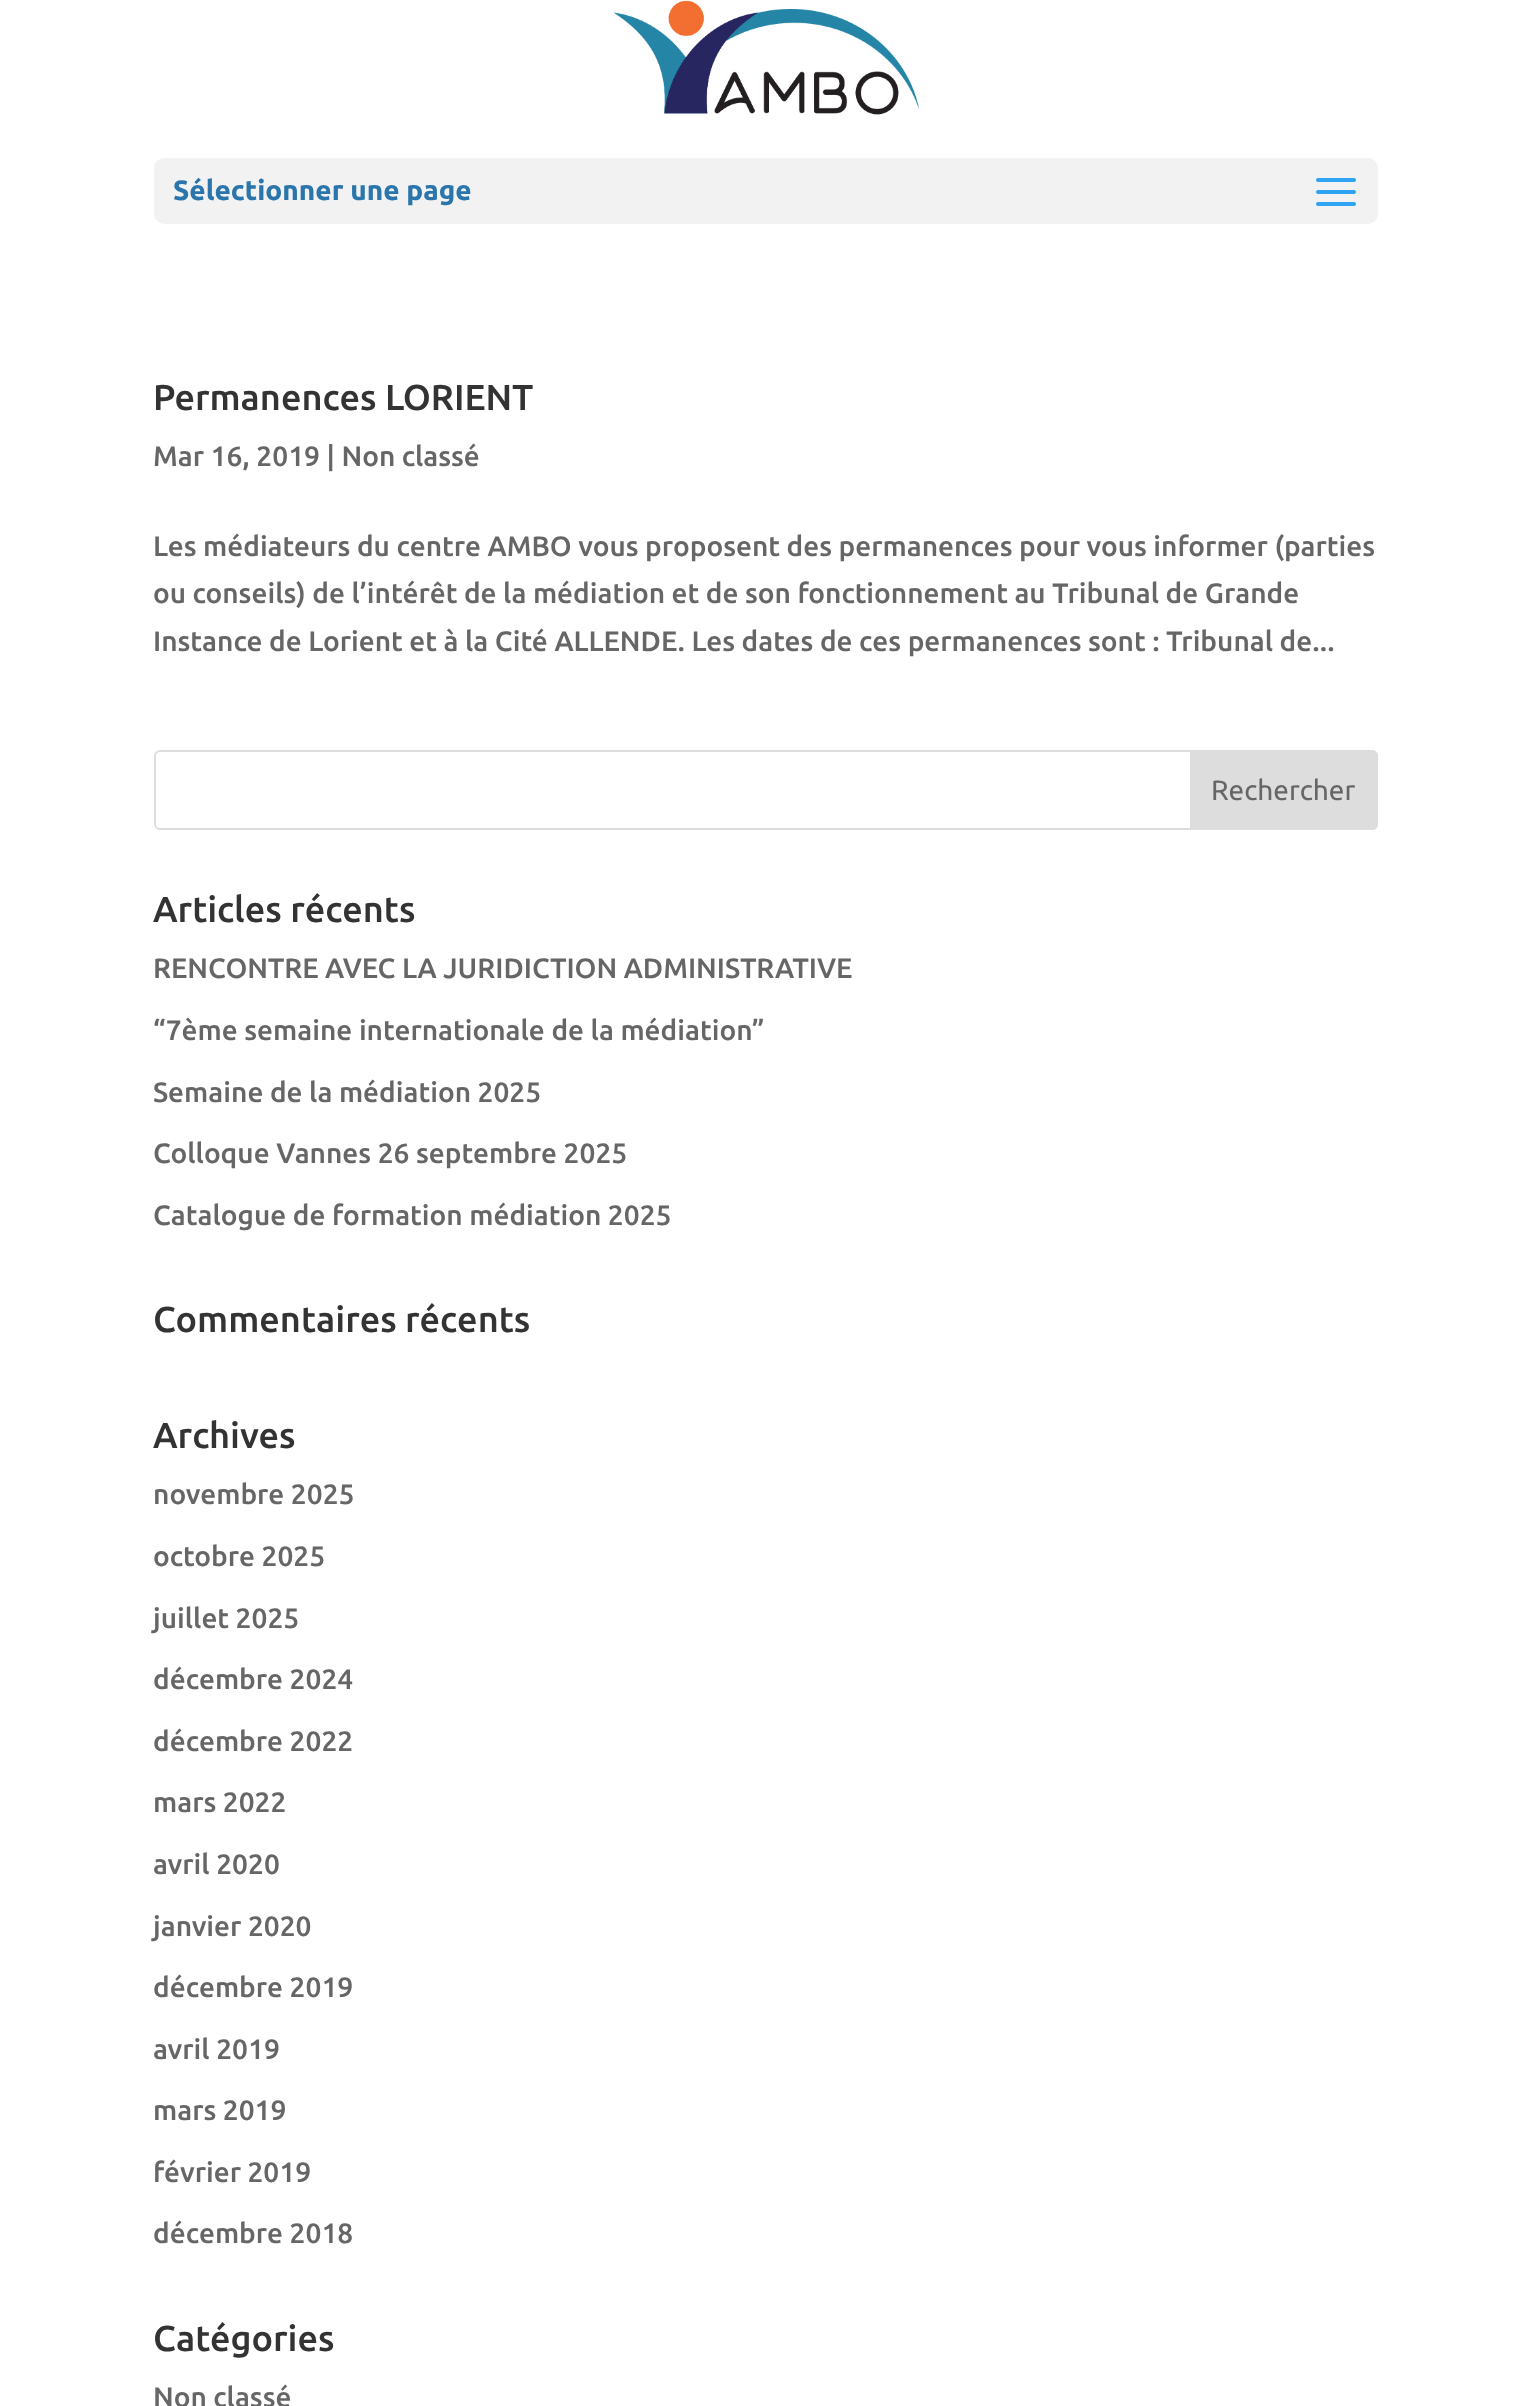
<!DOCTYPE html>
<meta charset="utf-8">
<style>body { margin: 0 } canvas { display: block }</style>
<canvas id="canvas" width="1530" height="2406"></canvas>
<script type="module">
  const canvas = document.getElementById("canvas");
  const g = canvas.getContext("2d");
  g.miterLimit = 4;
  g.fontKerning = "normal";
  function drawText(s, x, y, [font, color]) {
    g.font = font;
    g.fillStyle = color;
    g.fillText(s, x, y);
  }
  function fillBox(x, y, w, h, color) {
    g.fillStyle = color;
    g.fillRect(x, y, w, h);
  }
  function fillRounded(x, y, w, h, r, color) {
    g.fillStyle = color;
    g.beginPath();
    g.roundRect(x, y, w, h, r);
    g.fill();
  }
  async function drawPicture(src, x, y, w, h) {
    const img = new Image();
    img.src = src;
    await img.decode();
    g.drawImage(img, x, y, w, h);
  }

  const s1 = ["bold 28px Ubuntu", "#2A75AB"];
  const s2 = ["500 36px Ubuntu", "#333333"];
  const s3 = ["500 28px Ubuntu", "#666666"];
  const s4 = ["28px Ubuntu", "#666666"];

  fillBox(0, 0, 1530, 2406, "#FFFFFF");
  await drawPicture("pic1.png", 613, 0, 307, 115);
  fillRounded(154, 158, 1224, 66, 10, "#F2F2F2");
  drawText("Sélectionner une page", 173, 200, s1);
  await drawPicture("pic2.png", 1316, 178, 40, 28);
  drawText("Permanences LORIENT", 153, 410, s2);
  drawText("Mar 16, 2019 | Non classé", 153, 466, s3);
  drawText("Les médiateurs du centre AMBO vous proposent des permanences pour vous informer (parties", 153, 556, s3);
  drawText("ou conseils) de l’intérêt de la médiation et de son fonctionnement au Tribunal de Grande", 153, 603, s3);
  drawText("Instance de Lorient et à la Cité ALLENDE. Les dates de ces permanences sont : Tribunal de...", 153, 651, s3);
  g.beginPath();
  g.roundRect(155, 751, 1222, 78, 5);
  g.strokeStyle = "#DDDDDD";
  g.lineWidth = 2;
  g.stroke();
  g.fillStyle = "#DDDDDD";
  g.beginPath();
  g.roundRect(1191, 751, 186, 78, [0, 5, 5, 0]);
  g.fill();
  g.stroke();
  drawText("Rechercher", 1211, 800, s4);
  drawText("Articles récents", 153, 922, s2);
  drawText("RENCONTRE AVEC LA JURIDICTION ADMINISTRATIVE", 153, 978, s3);
  drawText("“7ème semaine internationale de la médiation”", 153, 1040, s3);
  drawText("Semaine de la médiation 2025", 153, 1102, s3);
  drawText("Colloque Vannes 26 septembre 2025", 153, 1163, s3);
  drawText("Catalogue de formation médiation 2025", 153, 1225, s3);
  drawText("Commentaires récents", 153, 1332, s2);
  drawText("Archives", 153, 1448, s2);
  drawText("novembre 2025", 153, 1504, s3);
  drawText("octobre 2025", 153, 1566, s3);
  drawText("juillet 2025", 153, 1628, s3);
  drawText("décembre 2024", 153, 1689, s3);
  drawText("décembre 2022", 153, 1751, s3);
  drawText("mars 2022", 153, 1812, s3);
  drawText("avril 2020", 153, 1874, s3);
  drawText("janvier 2020", 153, 1936, s3);
  drawText("décembre 2019", 153, 1997, s3);
  drawText("avril 2019", 153, 2059, s3);
  drawText("mars 2019", 153, 2120, s3);
  drawText("février 2019", 153, 2182, s3);
  drawText("décembre 2018", 153, 2243, s3);
  drawText("Catégories", 153, 2351, s2);
  drawText("Non classé", 153, 2407, s3);
</script>
